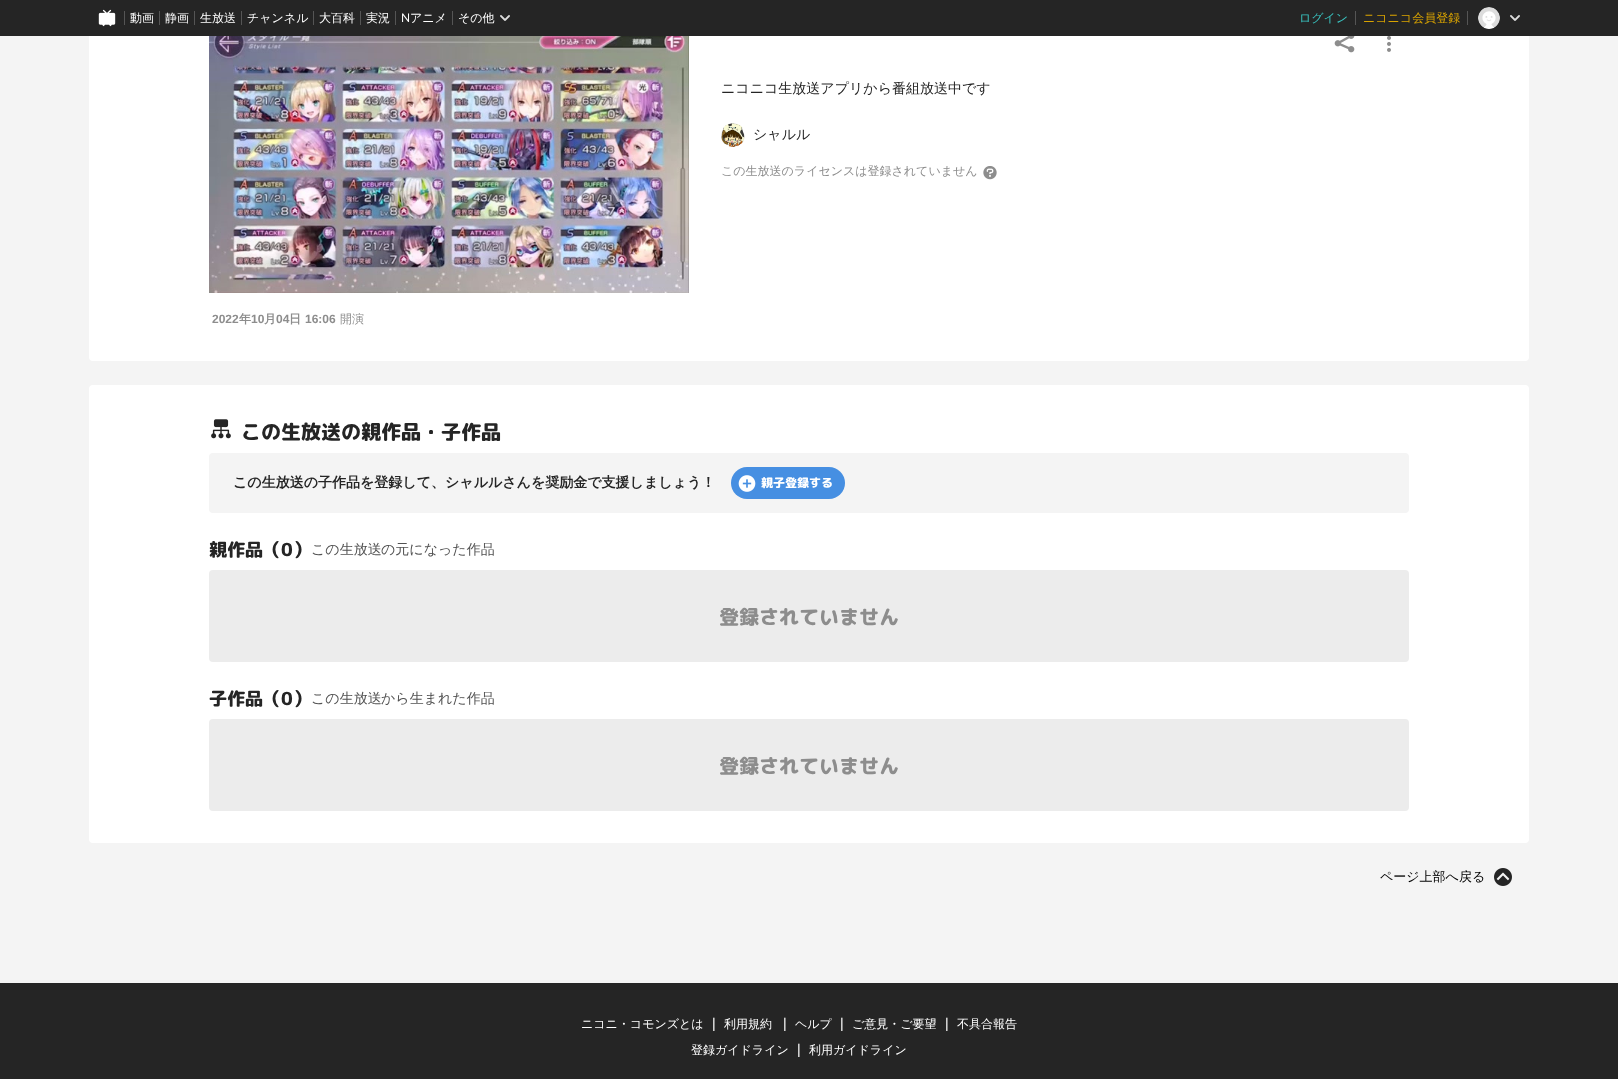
<!DOCTYPE html>
<meta charset="utf-8">
<style>body { margin: 0 } canvas { display: block }</style>
<canvas id="canvas" width="1618" height="1079"></canvas>
<script type="module">
  const canvas = document.getElementById("canvas");
  const g = canvas.getContext("2d");
  g.miterLimit = 4;
  g.fontKerning = "normal";
  function drawText(s, x, y, [font, color]) {
    g.font = font;
    g.fillStyle = color;
    g.fillText(s, x, y);
  }
  function fillBox(x, y, w, h, color) {
    g.fillStyle = color;
    g.fillRect(x, y, w, h);
  }
  function fillRounded(x, y, w, h, r, color) {
    g.fillStyle = color;
    g.beginPath();
    g.roundRect(x, y, w, h, r);
    g.fill();
  }
  async function drawPicture(src, x, y, w, h) {
    const img = new Image();
    img.src = src;
    await img.decode();
    g.drawImage(img, x, y, w, h);
  }

  const s1 = ["500 12px WenQuanYi Zen Hei", "#FFFFFF"];
  const s2 = ["12px Lato", "#FFFFFF"];
  const s3 = ["500 12px WenQuanYi Zen Hei", "#39C4C1"];
  const s4 = ["500 12px WenQuanYi Zen Hei", "#D9A300"];
  const s5 = ["500 14px WenQuanYi Zen Hei", "#252525"];
  const s6 = ["500 12px WenQuanYi Zen Hei", "#8D8D8D"];
  const s7 = ["bold 12px Liberation Sans", "#8D8D8D"];
  const s8 = ["bold 12px WenQuanYi Zen Hei", "#8D8D8D"];
  const s9 = ["bold 14px WenQuanYi Zen Hei", "#252525"];
  const s10 = ["500 14px WenQuanYi Zen Hei", "#525252"];
  const s11 = ["500 13px WenQuanYi Zen Hei", "#000000"];
  const s12 = ["14px Liberation Sans", "#FFFFFF"];

  fillBox(0, 0, 1618, 1079, "#F4F4F4");
  fillRounded(89, -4, 1440, 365, 4, "#FFFFFF");
  fillBox(0, 0, 1618, 36, "#252525");
  await drawPicture("pic1.png", 98, 9, 18, 18);
  fillBox(124, 11, 1, 14, "#555555");
  drawText("動画", 130, 22, s1);
  fillBox(159, 11, 1, 14, "#555555");
  drawText("静画", 165, 22, s1);
  fillBox(194, 11, 1, 14, "#555555");
  drawText("生放送", 200, 22, s1);
  fillBox(241, 11, 1, 14, "#555555");
  drawText("チャンネル", 247, 22, s1);
  fillBox(313, 11, 1, 14, "#555555");
  drawText("大百科", 319, 22, s1);
  fillBox(360, 11, 1, 14, "#555555");
  drawText("実況", 366, 22, s1);
  fillBox(395, 11, 1, 14, "#555555");
  drawText("N", 401, 22, s2);
  drawText("アニメ", 410, 22, s1);
  fillBox(452, 11, 1, 14, "#555555");
  drawText("その他", 458, 22, s1);
  await drawPicture("pic2.png", 500, 15, 10, 6);
  drawText("ログイン", 1299, 22, s3);
  fillBox(1355, 11, 1, 14, "#555555");
  drawText("ニコニコ会員登録", 1363, 22, s4);
  fillBox(1467, 11, 1, 14, "#555555");
  await drawPicture("pic3.png", 1478, 7, 22, 22);
  await drawPicture("pic2.png", 1510, 15, 10, 6);
  await drawPicture("pic4.png", 209, 36, 480, 257);
  await drawPicture("pic5.png", 1334, 36, 21, 17);
  await drawPicture("pic6.png", 1387, 36, 4, 16);
  drawText("ニコニコ生放送アプリから番組放送中です", 721, 93, s5);
  await drawPicture("pic7.png", 721, 123, 24, 24);
  drawText("シャルル", 753, 139, s5);
  drawText("この生放送のライセンスは登録されていません", 721, 175, s6);
  await drawPicture("pic8.png", 983, 166, 14, 14);
  drawText("2022", 212, 323, s7);
  drawText("年", 239, 323, s8);
  drawText("10", 251, 323, s7);
  drawText("月", 264, 323, s8);
  drawText("04", 276, 323, s7);
  drawText("日", 289, 323, s8);
  drawText("16:06", 305, 323, s7);
  drawText("開演", 340, 323, s6);
  fillRounded(89, 385, 1440, 458, 4, "#FFFFFF");
  await drawPicture("pic9.png", 211, 419, 20, 20);
  g.font = "800 20px 'Rounded Mplus 1c'";
  g.fillStyle = "#252525";
  g.save();
  g.translate(241, 439);
  g.rotate(0.1 * Math.PI / 180);
  g.fillText("この", 0, 0);
  g.restore();
  g.save();
  g.translate(281, 439);
  g.rotate(0.1 * Math.PI / 180);
  g.fillText("生放送", 0, 0);
  g.restore();
  g.save();
  g.translate(341, 439);
  g.rotate(0.1 * Math.PI / 180);
  g.fillText("の親作品・子作品", 0, 0);
  g.restore();
  fillRounded(209, 453, 1200, 60, 4, "#F4F4F4");
  drawText("この生放送の子作品を登録して、シャルルさんを奨励金で支援しましょう！", 233, 487, s9);
  fillRounded(731, 467, 114, 32, 16, "#468FE2");
  await drawPicture("pic10.png", 738, 475, 18, 17);
  g.font = "800 12px 'Rounded Mplus 1c'";
  g.fillStyle = "#FFFFFF";
  g.save();
  g.translate(761, 487);
  g.rotate(0.1 * Math.PI / 180);
  g.fillText("親子登録する", 0, 0);
  g.restore();
  g.font = "800 18px 'Rounded Mplus 1c'";
  g.fillStyle = "#252525";
  g.save();
  g.translate(209, 556);
  g.rotate(0.1 * Math.PI / 180);
  g.fillText("親", 0, 0);
  g.restore();
  g.save();
  g.translate(227, 556);
  g.rotate(0.1 * Math.PI / 180);
  g.fillText("作品（", 0, 0);
  g.restore();
  g.save();
  g.translate(281, 556);
  g.rotate(0.1 * Math.PI / 180);
  g.fillText("0", 0, 0);
  g.restore();
  g.save();
  g.translate(293, 556);
  g.rotate(0.1 * Math.PI / 180);
  g.fillText("）", 0, 0);
  g.restore();
  drawText("この生放送", 311, 554, s10);
  drawText("の元になった作品", 381, 554, s10);
  fillRounded(209, 570, 1200, 92, 4, "#ECECEC");
  g.font = "800 20px 'Rounded Mplus 1c'";
  g.fillStyle = "#8D8D8D";
  g.save();
  g.translate(719, 624);
  g.rotate(0.1 * Math.PI / 180);
  g.fillText("登録されていません", 0, 0);
  g.restore();
  g.font = "800 18px 'Rounded Mplus 1c'";
  g.fillStyle = "#252525";
  g.save();
  g.translate(209, 705);
  g.rotate(0.1 * Math.PI / 180);
  g.fillText("子", 0, 0);
  g.restore();
  g.save();
  g.translate(227, 705);
  g.rotate(0.1 * Math.PI / 180);
  g.fillText("作品（", 0, 0);
  g.restore();
  g.save();
  g.translate(281, 705);
  g.rotate(0.1 * Math.PI / 180);
  g.fillText("0", 0, 0);
  g.restore();
  g.save();
  g.translate(293, 705);
  g.rotate(0.1 * Math.PI / 180);
  g.fillText("）", 0, 0);
  g.restore();
  drawText("この生放送", 311, 703, s10);
  drawText("から生まれた作品", 381, 703, s10);
  fillRounded(209, 719, 1200, 92, 4, "#ECECEC");
  g.font = "800 20px 'Rounded Mplus 1c'";
  g.fillStyle = "#8D8D8D";
  g.save();
  g.translate(719, 773);
  g.rotate(0.1 * Math.PI / 180);
  g.fillText("登録されていません", 0, 0);
  g.restore();
  drawText("ページ上部へ戻る", 1380, 881, s11);
  await drawPicture("pic11.png", 1494, 868, 18, 18);
  fillBox(0, 983, 1618, 96, "#252525");
  drawText("ニコニ・コモンズとは", 581, 1028, s1);
  drawText("|", 712, 1028, s12);
  drawText("利用規約", 724, 1028, s1);
  drawText("|", 783, 1028, s12);
  drawText("ヘルプ", 795, 1028, s1);
  drawText("|", 840, 1028, s12);
  drawText("ご意見・ご要望", 852, 1028, s1);
  drawText("|", 945, 1028, s12);
  drawText("不具合報告", 957, 1028, s1);
  drawText("登録ガイドライン", 691, 1054, s1);
  drawText("|", 797, 1054, s12);
  drawText("利用ガイドライン", 809, 1054, s1);
</script>
